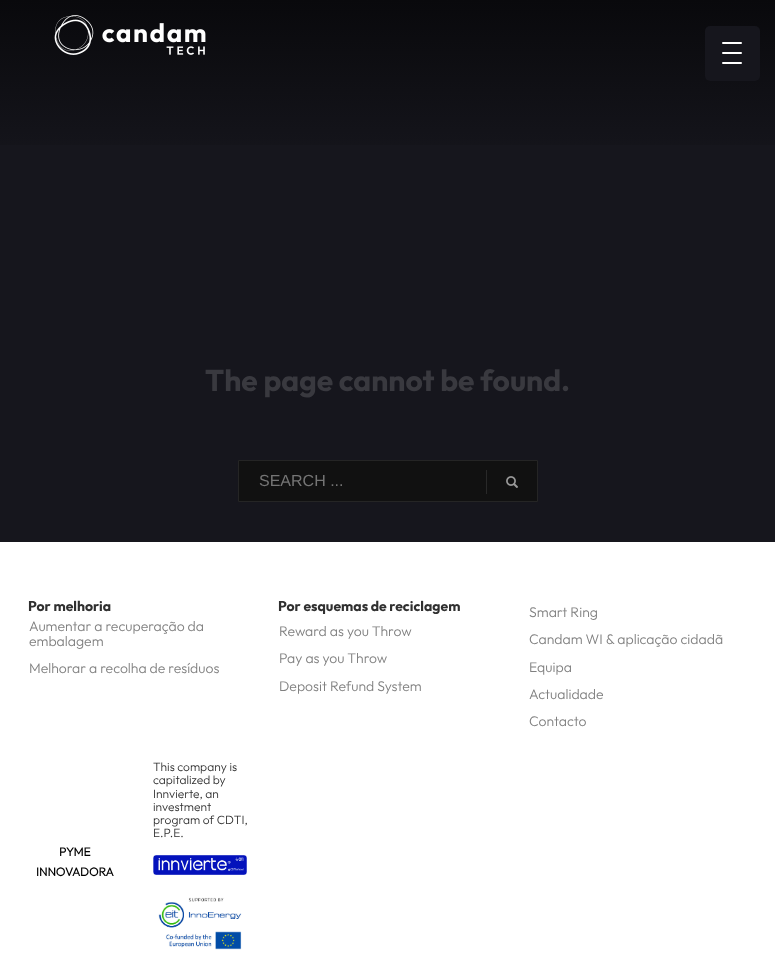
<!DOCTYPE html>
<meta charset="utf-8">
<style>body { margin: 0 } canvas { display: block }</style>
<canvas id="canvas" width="775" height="975"></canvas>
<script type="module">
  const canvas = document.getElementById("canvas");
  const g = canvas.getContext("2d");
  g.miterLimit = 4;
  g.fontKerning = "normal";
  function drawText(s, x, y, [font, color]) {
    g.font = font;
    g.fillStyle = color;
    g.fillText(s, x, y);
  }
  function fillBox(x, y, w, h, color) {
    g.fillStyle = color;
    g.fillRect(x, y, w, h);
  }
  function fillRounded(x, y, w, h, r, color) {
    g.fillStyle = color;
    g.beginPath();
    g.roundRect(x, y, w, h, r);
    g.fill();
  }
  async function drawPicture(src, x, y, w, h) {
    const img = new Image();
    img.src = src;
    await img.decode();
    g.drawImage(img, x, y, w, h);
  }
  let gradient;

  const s1 = ["bold 30px Outfit", "#39393F"];
  const s2 = ["16px Liberation Sans", "#757575"];
  const s3 = ["bold 14px Outfit", "#303030"];
  const s4 = ["300 14px Outfit", "#808080"];
  const s5 = ["300 12px Outfit", "#303030"];
  const s6 = ["bold 12px 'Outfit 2'", "#000000"];

  fillBox(0, 0, 775, 975, "#16161D");
  gradient = g.createLinearGradient(388, 0, 388, 170);
  gradient.addColorStop(0, "#09090C");
  gradient.addColorStop(1, "#16161D");
  g.fillStyle = gradient;
  g.fillRect(0, 0, 775, 145);
  fillRounded(705, 26, 55, 55, 5, "#16161D");
  fillRounded(722, 52, 20, 2, 1, "#FFFFFF");
  fillRounded(722, 42, 20, 2, 1, "#FFFFFF");
  fillRounded(722, 62, 20, 2, 1, "#FFFFFF");
  await drawPicture("pic1.png", 54, 15, 152, 40);
  drawText("The page cannot be found.", 205, 391, s1);
  g.fillStyle = "#111111";
  g.beginPath();
  g.rect(238.5, 460.5, 299, 41);
  g.fill();
  g.strokeStyle = "#252525";
  g.stroke();
  drawText("SEARCH ...", 259, 486, s2);
  fillBox(486, 470, 1, 24, "#292929");
  await drawPicture("pic2.png", 506, 476, 12, 12);
  fillBox(0, 542, 775, 433, "#FFFFFF");
  drawText("Por melhoria", 28, 611, s3);
  drawText("Aumentar a recuperação da", 29, 631, s4);
  drawText("embalagem", 29, 646, s4);
  drawText("Melhorar a recolha de resíduos", 29, 673, s4);
  drawText("Por esquemas de reciclagem", 278, 611, s3);
  drawText("Reward as you Throw", 279, 636, s4);
  drawText("Pay as you Throw", 279, 663, s4);
  drawText("Deposit Refund System", 279, 691, s4);
  drawText("Smart Ring", 529, 617, s4);
  drawText("Candam WI & aplicação cidadã", 529, 644, s4);
  drawText("Equipa", 529, 672, s4);
  drawText("Actualidade", 529, 699, s4);
  drawText("Contacto", 529, 726, s4);
  drawText("This company is", 153, 771, s5);
  drawText("capitalized by", 153, 784, s5);
  drawText("Innvierte, an", 153, 798, s5);
  drawText("investment", 153, 811, s5);
  drawText("program of CDTI,", 153, 824, s5);
  drawText("E.P.E.", 153, 837, s5);
  await drawPicture("pic3.png", 153, 855, 94, 20);
  await drawPicture("pic4.png", 158, 897, 84, 53);
  drawText("PYME", 59, 856, s6);
  drawText("INNOVADORA", 36, 876, s6);
</script>
